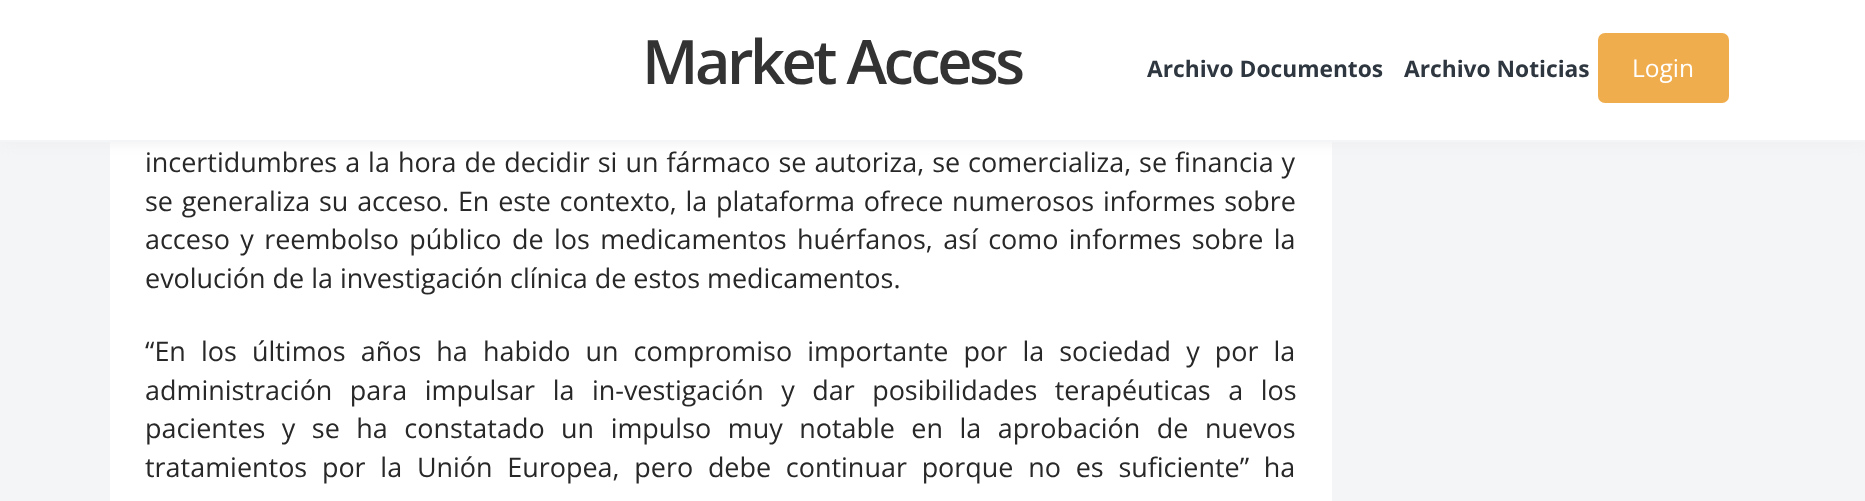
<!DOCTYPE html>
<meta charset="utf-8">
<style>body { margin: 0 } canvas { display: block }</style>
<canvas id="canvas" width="1865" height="501"></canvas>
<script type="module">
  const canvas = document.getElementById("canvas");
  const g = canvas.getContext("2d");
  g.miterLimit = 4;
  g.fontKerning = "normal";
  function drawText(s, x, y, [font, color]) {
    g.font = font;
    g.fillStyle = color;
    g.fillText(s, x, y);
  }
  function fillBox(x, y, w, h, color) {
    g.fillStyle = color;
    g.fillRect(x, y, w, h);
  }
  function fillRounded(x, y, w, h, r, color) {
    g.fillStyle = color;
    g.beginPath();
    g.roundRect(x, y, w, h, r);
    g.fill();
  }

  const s1 = ["600 61.25px Open Sans", "#333333"];
  const s2 = ["bold 22.75px Open Sans", "#2E363F"];
  const s3 = ["24.5px Open Sans", "#FFFFFF"];
  const s4 = ["26.95px Open Sans", "#282828"];

  fillBox(0, 0, 1865, 501, "#F4F5F7");
  fillBox(110, 142, 1222, 359, "#FFFFFF");
  g.fillStyle = "#EEEEEE";
  g.filter = "blur(7px)";
  g.beginPath();
  g.rect(0, 0, 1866, 142);
  g.fill();
  g.filter = "none";
  fillBox(0, 0, 1865, 140, "#FFFFFF");
  fillBox(0, 140, 1865, 2, "#F4F5F7");
  g.letterSpacing = "-3.5px";
  drawText("Market Access", 642, 84, s1);
  g.letterSpacing = "0px";
  drawText("Archivo Documentos", 1147, 77, s2);
  drawText("Archivo Noticias", 1404, 77, s2);
  fillRounded(1598, 33, 131, 70, 7, "#F0AD4E");
  drawText("Login", 1632, 77, s3);
  g.wordSpacing = "1px";
  drawText("incertidumbres a la hora de decidir si un fármaco se autoriza, se comercializa, se financia y", 145, 172, s4);
  g.wordSpacing = "1.75px";
  drawText("se generaliza su acceso. En este contexto, la plataforma ofrece numerosos informes sobre", 145, 211, s4);
  g.wordSpacing = "3.4px";
  drawText("acceso y reembolso público de los medicamentos huérfanos, así como informes sobre la", 145, 249, s4);
  g.wordSpacing = "0px";
  drawText("evolución de la investigación clínica de estos medicamentos.", 145, 288, s4);
  g.wordSpacing = "8.1px";
  drawText("“En los últimos años ha habido un compromiso importante por la sociedad y por la", 145, 361, s4);
  g.wordSpacing = "10.5px";
  drawText("administración para impulsar la in-vestigación y dar posibilidades terapéuticas a los", 145, 400, s4);
  g.wordSpacing = "9.5px";
  drawText("pacientes y se ha constatado un impulso muy notable en la aprobación de nuevos", 145, 438, s4);
  g.wordSpacing = "7.75px";
  drawText("tratamientos por la Unión Europea, pero debe continuar porque no es suficiente” ha", 145, 477, s4);
</script>
